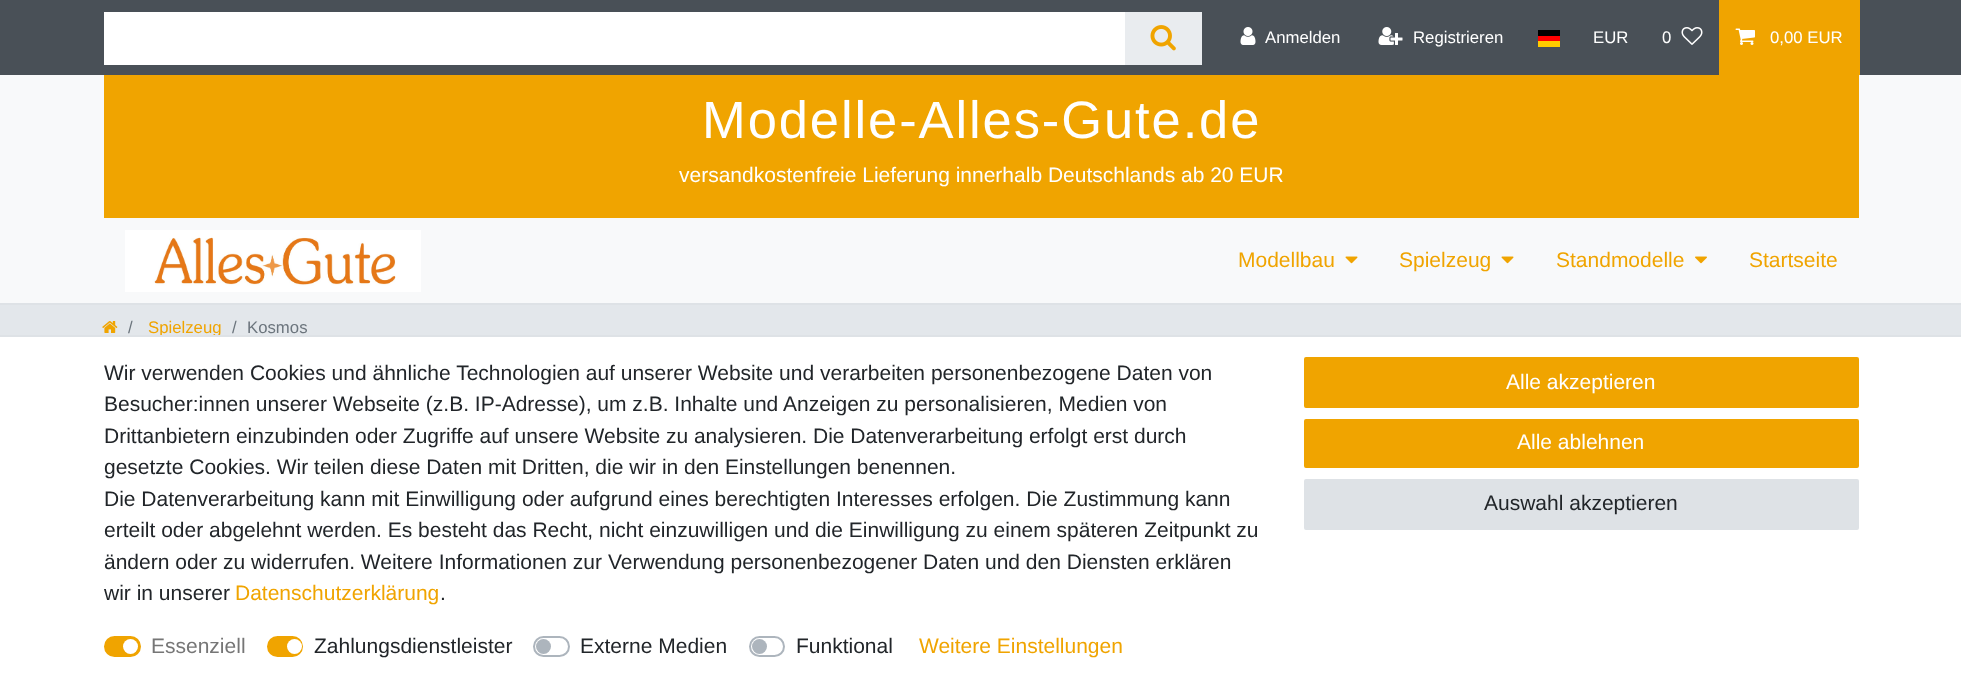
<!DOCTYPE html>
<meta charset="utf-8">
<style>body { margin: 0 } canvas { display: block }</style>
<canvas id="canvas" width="1961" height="682"></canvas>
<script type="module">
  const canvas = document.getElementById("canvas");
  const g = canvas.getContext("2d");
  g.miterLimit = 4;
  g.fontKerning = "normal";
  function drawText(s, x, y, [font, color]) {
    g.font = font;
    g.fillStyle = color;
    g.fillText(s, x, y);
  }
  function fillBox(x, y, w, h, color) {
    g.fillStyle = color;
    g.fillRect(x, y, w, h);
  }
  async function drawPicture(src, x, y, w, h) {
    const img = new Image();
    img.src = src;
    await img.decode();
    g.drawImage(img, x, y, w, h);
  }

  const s1 = ["16.75px Liberation Sans", "#FFFFFF"];
  const s2 = ["52.5px Liberation Sans", "#FFFFFF"];
  const s3 = ["21px Liberation Sans", "#FFFFFF"];
  const s4 = ["21px Liberation Sans", "#F0A400"];
  const s5 = ["16.75px Liberation Sans", "#6C757D"];
  const s6 = ["16.75px Liberation Sans", "#F0A400"];
  const s7 = ["21px Liberation Sans", "#212529"];
  const s8 = ["21px Liberation Sans", "#767676"];

  fillBox(0, 0, 1961, 682, "#F8F9FA");
  fillBox(0, 0, 1961, 75, "#495057");
  fillBox(104, 12, 1021, 53, "#FFFFFF");
  fillBox(1125, 12, 77, 53, "#E9ECEF");
  await drawPicture("pic1.png", 1150, 25, 26, 26);
  await drawPicture("pic2.png", 1240, 27, 16, 18);
  drawText("Anmelden", 1265, 43, s1);
  await drawPicture("pic3.png", 1378, 27, 25, 18);
  drawText("Registrieren", 1413, 43, s1);
  fillBox(1538, 41, 22, 6, "#FFCC00");
  fillBox(1538, 30, 22, 6, "#000000");
  fillBox(1538, 36, 22, 5, "#FF0000");
  drawText("EUR", 1593, 43, s1);
  drawText("0", 1662, 43, s1);
  await drawPicture("pic4.png", 1681, 27, 22, 18);
  fillBox(1719, 0, 141, 75, "#F0A400");
  await drawPicture("pic5.png", 1735, 28, 20, 17);
  drawText("0,00 EUR", 1770, 43, s1);
  fillBox(104, 75, 1755, 143, "#F0A400");
  g.letterSpacing = "1.9px";
  drawText("Modelle-Alles-Gute.de", 702, 138, s2);
  g.letterSpacing = "0px";
  drawText("versandkostenfreie Lieferung innerhalb Deutschlands ab 20 EUR", 679, 182, s3);
  fillBox(0, 303, 1961, 2, "#DEE2E6");
  await drawPicture("pic6.png", 125, 230, 296, 62);
  drawText("Modellbau", 1238, 267, s4);
  await drawPicture("pic7.png", 1345, 256, 13, 8);
  drawText("Spielzeug", 1399, 267, s4);
  await drawPicture("pic7.png", 1501, 256, 13, 8);
  drawText("Standmodelle", 1556, 267, s4);
  await drawPicture("pic8.png", 1695, 256, 12, 8);
  drawText("Startseite", 1749, 267, s4);
  fillBox(0, 305, 1961, 30, "#E3E7EB");
  await drawPicture("pic9.png", 102, 321, 16, 12);
  drawText("/", 128, 333, s5);
  drawText("Spielzeug", 148, 333, s6);
  drawText("/", 232, 333, s5);
  drawText("Kosmos", 247, 333, s5);
  fillBox(0, 337, 1961, 345, "#FFFFFF");
  fillBox(0, 335, 1961, 2, "#DEE2E6");
  drawText("Wir verwenden Cookies und ähnliche Technologien auf unserer Website und verarbeiten personenbezogene Daten von", 104, 380, s7);
  drawText("Besucher:innen unserer Webseite (z.B. IP-Adresse), um z.B. Inhalte und Anzeigen zu personalisieren, Medien von", 104, 411, s7);
  drawText("Drittanbietern einzubinden oder Zugriffe auf unsere Website zu analysieren. Die Datenverarbeitung erfolgt erst durch", 104, 443, s7);
  drawText("gesetzte Cookies. Wir teilen diese Daten mit Dritten, die wir in den Einstellungen benennen.", 104, 474, s7);
  drawText("Die Datenverarbeitung kann mit Einwilligung oder aufgrund eines berechtigten Interesses erfolgen. Die Zustimmung kann", 104, 506, s7);
  drawText("erteilt oder abgelehnt werden. Es besteht das Recht, nicht einzuwilligen und die Einwilligung zu einem späteren Zeitpunkt zu", 104, 537, s7);
  drawText("ändern oder zu widerrufen. Weitere Informationen zur Verwendung personenbezogener Daten und den Diensten erklären", 104, 569, s7);
  drawText("wir in unserer", 104, 600, s7);
  drawText("Datenschutzerklärung", 235, 600, s4);
  drawText(".", 440, 600, s7);
  g.fillStyle = "#F0A400";
  g.beginPath();
  g.roundRect(105, 637, 35, 19, 9.5);
  g.fill();
  g.strokeStyle = "#F0A400";
  g.lineWidth = 2;
  g.stroke();
  drawText("Essenziell", 151, 653, s8);
  g.fillStyle = "#FFFFFF";
  g.beginPath();
  g.arc(130.5, 646.5, 7.5, 0, Math.PI * 2);
  g.fill();
  g.fillStyle = "#F0A400";
  g.beginPath();
  g.roundRect(268, 637, 34, 19, 9.5);
  g.fill();
  g.stroke();
  drawText("Zahlungsdienstleister", 314, 653, s7);
  g.fillStyle = "#FFFFFF";
  g.beginPath();
  g.arc(294.5, 646.5, 7.5, 0, Math.PI * 2);
  g.fill();
  g.beginPath();
  g.roundRect(534, 637, 35, 19, 9.5);
  g.strokeStyle = "#ADB5BD";
  g.stroke();
  drawText("Externe Medien", 580, 653, s7);
  g.fillStyle = "#ADB5BD";
  g.beginPath();
  g.arc(543.5, 646.5, 7.5, 0, Math.PI * 2);
  g.fill();
  g.beginPath();
  g.roundRect(750, 637, 34, 19, 9.5);
  g.stroke();
  drawText("Funktional", 796, 653, s7);
  g.fillStyle = "#ADB5BD";
  g.beginPath();
  g.arc(759.5, 646.5, 7.5, 0, Math.PI * 2);
  g.fill();
  drawText("Weitere Einstellungen", 919, 653, s4);
  g.beginPath();
  g.roundRect(1305, 358, 553, 49, 1);
  g.fill();
  g.strokeStyle = "#F0A400";
  g.stroke();
  drawText("Alle akzeptieren", 1506, 389, s3);
  g.fillStyle = "#F0A400";
  g.beginPath();
  g.roundRect(1305, 420, 553, 47, 1);
  g.fill();
  g.stroke();
  drawText("Alle ablehnen", 1517, 449, s3);
  g.fillStyle = "#DEE2E6";
  g.beginPath();
  g.roundRect(1305, 480, 553, 49, 1);
  g.fill();
  g.strokeStyle = "#DEE2E6";
  g.stroke();
  drawText("Auswahl akzeptieren", 1484, 510, s7);
</script>
